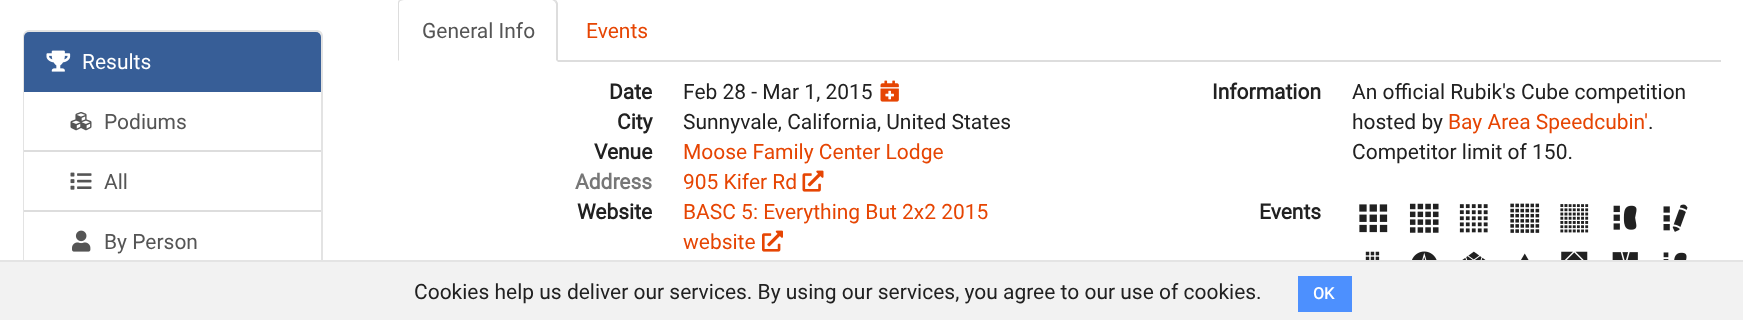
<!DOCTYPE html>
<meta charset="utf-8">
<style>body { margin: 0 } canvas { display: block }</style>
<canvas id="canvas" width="1743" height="320"></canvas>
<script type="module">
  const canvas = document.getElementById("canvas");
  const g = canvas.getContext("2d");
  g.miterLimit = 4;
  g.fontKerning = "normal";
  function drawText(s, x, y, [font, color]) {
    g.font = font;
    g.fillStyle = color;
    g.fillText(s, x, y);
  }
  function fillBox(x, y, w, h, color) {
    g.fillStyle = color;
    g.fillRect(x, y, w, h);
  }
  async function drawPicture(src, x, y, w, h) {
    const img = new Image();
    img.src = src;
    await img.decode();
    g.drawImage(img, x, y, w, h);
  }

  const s1 = ["21px Roboto", "#FFFFFF"];
  const s2 = ["21px Roboto", "#555555"];
  const s3 = ["21px Roboto", "#E64503"];
  const s4 = ["bold 21px Roboto", "#212121"];
  const s5 = ["21px Roboto", "#212121"];
  const s6 = ["bold 21px Roboto", "#777777"];
  const s7 = ["bold 16px Roboto", "#FFFFFF"];

  fillBox(0, 0, 1743, 320, "#FFFFFF");
  g.fillStyle = "#E9E9E9";
  g.beginPath();
  g.moveTo(28, 33);
  g.lineTo(316, 33);
  g.bezierCurveTo(319, 33, 321, 35, 321, 38);
  g.lineTo(321, 37);
  g.bezierCurveTo(321, 34, 319, 32, 316, 32);
  g.lineTo(29, 32);
  g.bezierCurveTo(26, 32, 24, 34, 24, 37);
  g.lineTo(24, 38);
  g.bezierCurveTo(24, 35, 26, 33, 28, 33);
  g.closePath();
  g.fill();
  g.beginPath();
  g.roundRect(24, 31, 298, 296, 5);
  g.strokeStyle = "#E3E3E3";
  g.lineWidth = 2;
  g.stroke();
  g.fillStyle = "#375E97";
  g.beginPath();
  g.roundRect(24, 32, 297, 60, [5, 5, 0, 0]);
  g.fill();
  await drawPicture("pic1.png", 46, 50, 25, 22);
  drawText("Results", 82, 69, s1);
  fillBox(24, 92, 1, 58, "#FFFFFF");
  await drawPicture("pic2.png", 70, 112, 22, 19);
  drawText("Podiums", 104, 129, s2);
  fillBox(24, 152, 1, 58, "#FFFFFF");
  fillBox(24, 150, 297, 2, "#DDDDDD");
  await drawPicture("pic3.png", 70, 172, 22, 18);
  drawText("All", 104, 189, s2);
  fillBox(24, 212, 1, 48, "#FFFFFF");
  fillBox(24, 210, 297, 2, "#DDDDDD");
  await drawPicture("pic4.png", 72, 230, 19, 22);
  drawText("By Person", 104, 249, s2);
  fillBox(558, 60, 1163, 2, "#DDDDDD");
  g.beginPath();
  g.moveTo(404, 0);
  g.bezierCurveTo(402, 0, 401, 1, 400, 1);
  g.lineTo(399, 0);
  g.bezierCurveTo(405, -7, 417, -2, 427, -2);
  g.lineTo(554, -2);
  g.lineTo(556, 0);
  g.lineTo(555, 2);
  g.bezierCurveTo(554, 1, 553, 0, 552, 0);
  g.closePath();
  g.fill();
  g.beginPath();
  g.moveTo(558, 62);
  g.lineTo(558, 4);
  g.bezierCurveTo(558, 3, 557, 1, 556, 0);
  g.lineTo(555, 2);
  g.lineTo(556, 4);
  g.lineTo(556, 60);
  g.closePath();
  g.fill();
  g.beginPath();
  g.moveTo(398, 61);
  g.lineTo(398, 4);
  g.bezierCurveTo(398, 3, 398, 1, 399, 0);
  g.lineTo(400, 1);
  g.lineTo(399, 3);
  g.lineTo(399, 60);
  g.closePath();
  g.fill();
  drawText("General Info", 422, 38, s2);
  drawText("Events", 586, 38, s3);
  drawText("Date", 609, 99, s4);
  drawText("Feb 28 - Mar 1, 2015", 683, 99, s5);
  await drawPicture("pic5.png", 880, 80, 19, 22);
  drawText("City", 617, 129, s4);
  drawText("Sunnyvale, California, United States", 683, 129, s5);
  drawText("Venue", 594, 159, s4);
  drawText("Moose Family Center Lodge", 683, 159, s3);
  drawText("Address", 575, 189, s6);
  drawText("905 Kifer Rd", 683, 189, s3);
  await drawPicture("pic6.png", 802, 170, 22, 22);
  drawText("Website", 577, 219, s4);
  drawText("BASC 5: Everything But 2x2 2015", 683, 219, s3);
  drawText("website", 683, 249, s3);
  await drawPicture("pic7.png", 762, 230, 21, 22);
  drawText("Information", 1212, 99, s4);
  drawText("An official Rubik's Cube competition", 1352, 99, s5);
  drawText("hosted by", 1352, 129, s5);
  drawText("Bay Area Speedcubin'", 1448, 129, s3);
  drawText(".", 1648, 129, s5);
  drawText("Competitor limit of 150.", 1352, 159, s5);
  drawText("Events", 1259, 219, s4);
  await drawPicture("pic8.png", 1359, 204, 29, 29);
  await drawPicture("pic9.png", 1409, 203, 30, 30);
  await drawPicture("pic10.png", 1459, 204, 29, 29);
  await drawPicture("pic11.png", 1510, 203, 30, 30);
  await drawPicture("pic12.png", 1560, 204, 29, 29);
  await drawPicture("pic13.png", 1613, 205, 24, 25);
  await drawPicture("pic14.png", 1663, 204, 25, 28);
  await drawPicture("pic15.png", 1365, 251, 15, 9);
  await drawPicture("pic16.png", 1412, 251, 25, 9);
  await drawPicture("pic17.png", 1462, 251, 24, 9);
  await drawPicture("pic18.png", 1521, 253, 8, 7);
  await drawPicture("pic19.png", 1561, 251, 27, 9);
  await drawPicture("pic20.png", 1612, 252, 26, 8);
  await drawPicture("pic21.png", 1663, 252, 24, 8);
  fillBox(0, 262, 1743, 58, "#F2F2F2");
  fillBox(0, 260, 1743, 2, "#E4E4E4");
  drawText("Cookies help us deliver our services. By using our services, you agree to our use of cookies.", 414, 299, s5);
  fillBox(1298, 276, 54, 36, "#4D90FE");
  drawText("OK", 1313, 299, s7);
</script>
